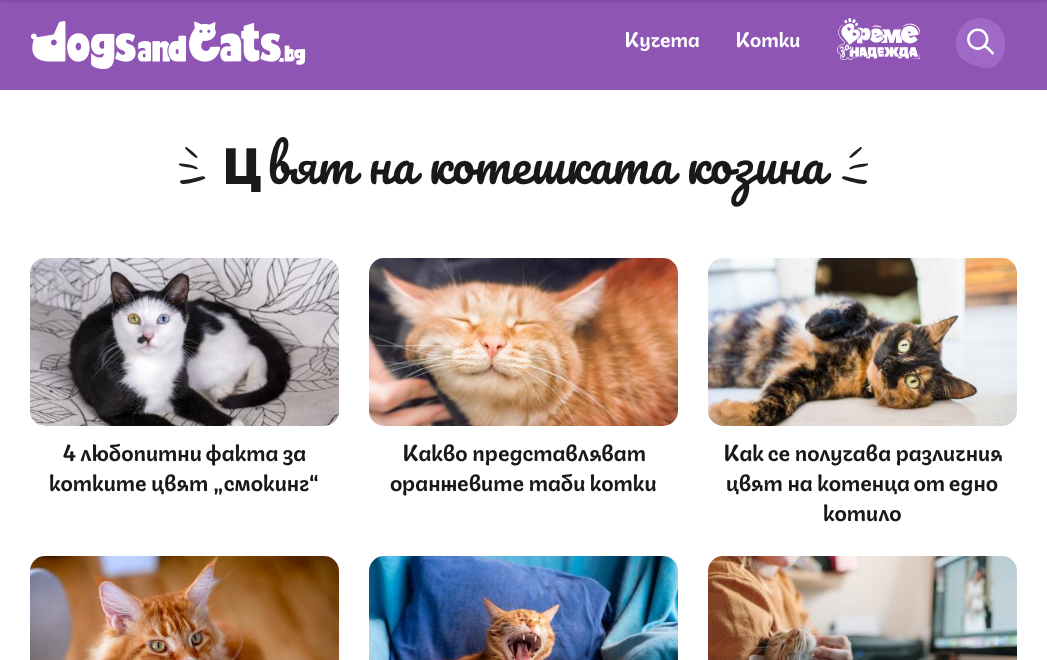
<!DOCTYPE html>
<meta charset="utf-8">
<style>body { margin: 0 } canvas { display: block }</style>
<canvas id="canvas" width="1047" height="660"></canvas>
<script type="module">
  const canvas = document.getElementById("canvas");
  const g = canvas.getContext("2d");
  g.miterLimit = 4;
  g.fontKerning = "normal";
  function drawText(s, x, y, [font, color]) {
    g.font = font;
    g.fillStyle = color;
    g.fillText(s, x, y);
  }
  function fillBox(x, y, w, h, color) {
    g.fillStyle = color;
    g.fillRect(x, y, w, h);
  }
  async function drawPicture(src, x, y, w, h) {
    const img = new Image();
    img.src = src;
    await img.decode();
    g.drawImage(img, x, y, w, h);
  }

  const s1 = ["bold 20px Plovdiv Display", "#FFFFFF"];
  const s2 = ["900 50px Noto Sans", "#191919"];
  const s3 = ["50px Pacifico", "#191919"];
  const s4 = ["bold 22px Plovdiv Display", "#191919"];

  fillBox(0, 0, 1047, 660, "#FFFFFF");
  fillBox(0, 0, 1047, 90, "#8E55B5");
  g.fillStyle = "rgba(0, 0, 0, 0.16)";
  g.filter = "blur(1.5px)";
  g.beginPath();
  g.rect(0, -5, 1047, 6);
  g.fill();
  g.filter = "none";
  await drawPicture("pic1.png", 30, 21, 276, 48);
  drawText("Кучета", 624, 47, s1);
  drawText("Котки", 735, 47, s1);
  await drawPicture("pic2.png", 837, 18, 83, 42);
  await drawPicture("pic3.png", 956, 18, 49, 50);
  await drawPicture("pic4.png", 178, 147, 28, 37);
  drawText("Ц", 222, 184, s2);
  drawText("вят на котешката козина", 267, 184, s3);
  await drawPicture("pic5.png", 841, 147, 28, 37);
  await drawPicture("pic6.png", 30, 258, 309, 168);
  drawText("4 любопитни факта за", 63, 461, s4);
  drawText("котките цвят „смокинг“", 49, 491, s4);
  await drawPicture("pic7.png", 369, 258, 309, 168);
  drawText("Какво представляват", 402, 461, s4);
  drawText("оранжевите таби котки", 390, 491, s4);
  await drawPicture("pic8.png", 708, 258, 309, 168);
  drawText("Как се получава различния", 723, 461, s4);
  drawText("цвят на котенца от едно", 726, 491, s4);
  drawText("котило", 823, 521, s4);
  await drawPicture("pic9.png", 30, 556, 309, 104);
  await drawPicture("pic10.png", 369, 556, 309, 104);
  await drawPicture("pic11.png", 708, 556, 309, 104);
</script>
